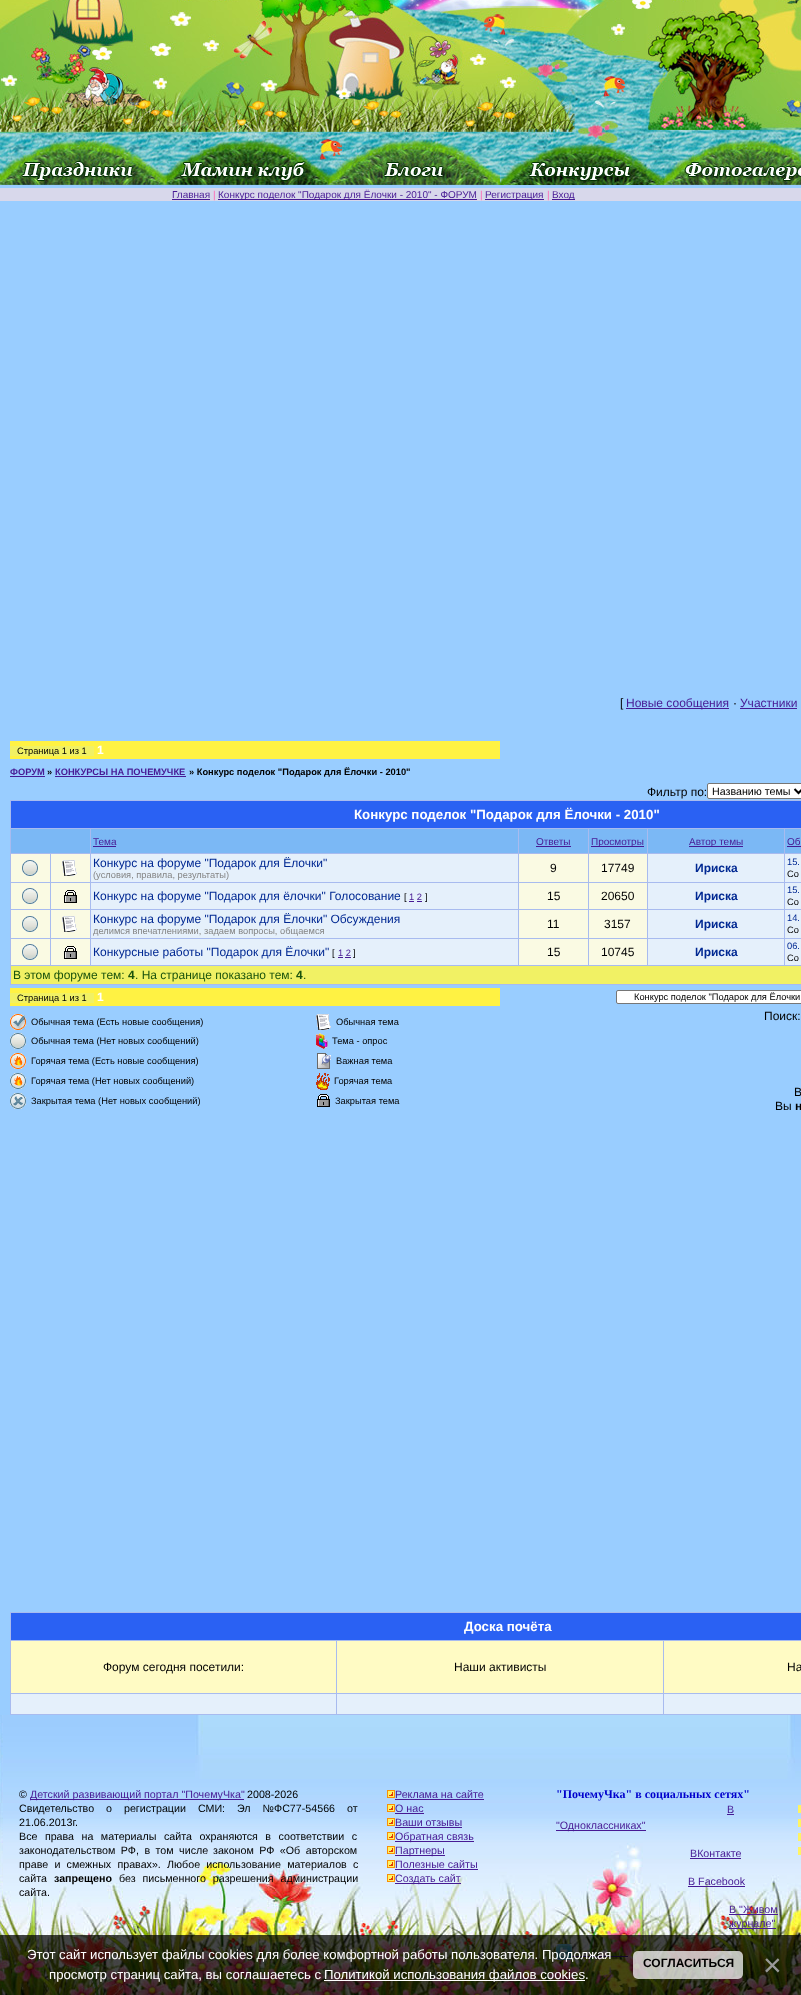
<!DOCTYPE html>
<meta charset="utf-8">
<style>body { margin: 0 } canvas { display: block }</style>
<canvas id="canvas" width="801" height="1995"></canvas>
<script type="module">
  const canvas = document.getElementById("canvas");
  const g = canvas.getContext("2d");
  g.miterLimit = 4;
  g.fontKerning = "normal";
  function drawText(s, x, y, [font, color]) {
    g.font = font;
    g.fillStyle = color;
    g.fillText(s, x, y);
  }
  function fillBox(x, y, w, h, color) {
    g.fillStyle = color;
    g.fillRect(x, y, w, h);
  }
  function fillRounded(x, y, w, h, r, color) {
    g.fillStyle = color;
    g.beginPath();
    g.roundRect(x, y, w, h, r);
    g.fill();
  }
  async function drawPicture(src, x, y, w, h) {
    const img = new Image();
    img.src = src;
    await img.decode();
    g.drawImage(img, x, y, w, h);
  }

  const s1 = ["10px Liberation Sans", "#471A94"];
  const s2 = ["10px Liberation Sans", "#FF69B4"];
  const s3 = ["12px Liberation Sans", "#000000"];
  const s4 = ["12px Liberation Sans", "#471A94"];
  const s5 = ["9.3px Liberation Sans", "#000000"];
  const s6 = ["bold 12px Liberation Sans", "#FFFFFF"];
  const s7 = ["bold 9.3px Liberation Sans", "#471A94"];
  const s8 = ["bold 9.3px Liberation Sans", "#000000"];
  const s9 = ["10.7px Liberation Sans", "#000000"];
  const s10 = ["bold 13.3px Liberation Sans", "#FFFFFF"];
  const s11 = ["12px Liberation Sans", "#002892"];
  const s12 = ["9.3px Liberation Sans", "#858585"];
  const s13 = ["bold 12px Liberation Sans", "#002892"];
  const s14 = ["9.3px Liberation Sans", "#002892"];
  const s15 = ["9.3px Liberation Sans", "#471A94"];
  const s16 = ["12px Liberation Sans", "#1A530C"];
  const s17 = ["bold 12px Liberation Sans", "#1A530C"];
  const s18 = ["bold 12px Liberation Sans", "#000000"];
  const s19 = ["10.7px Liberation Sans", "#471A94"];
  const s20 = ["bold 10.7px Liberation Sans", "#000000"];
  const s21 = ["bold 12px Liberation Serif", "#0000CD"];
  const s22 = ["13.2px Liberation Sans", "#FFFFFF"];
  const s23 = ["32px Liberation Sans", "#999999"];

  fillBox(0, 0, 801, 1995, "#99CDFF");
  await drawPicture("pic1.png", 0, 0, 801, 185);
  fillBox(0, 188, 801, 13, "#D8D8EB");
  drawText("Главная", 172, 198, s1);
  fillBox(172, 199, 38, 1, "#471A94");
  drawText("|", 213, 198, s2);
  fillBox(218, 199, 259, 1, "#471A94");
  drawText("Конкурс поделок \"Подарок для Ёлочки - 2010\" - ФОРУМ", 218, 198, s1);
  drawText("|", 480, 198, s2);
  fillBox(485, 199, 59, 1, "#471A94");
  drawText("Регистрация", 485, 198, s1);
  drawText("|", 547, 198, s2);
  fillBox(552, 199, 23, 1, "#471A94");
  drawText("Вход", 552, 198, s1);
  drawText("[", 620, 707, s3);
  fillBox(626, 708, 103, 1, "#471A94");
  drawText("Новые сообщения", 626, 707, s4);
  drawText("·", 733, 707, s3);
  drawText("Участники", 740, 707, s4);
  fillBox(740, 708, 57, 1, "#471A94");
  fillBox(10, 741, 490, 18, "#FFF243");
  fillBox(10, 746, 84, 10, "#F1F164");
  drawText("Страница 1 из 1", 17, 754, s5);
  drawText("1", 97, 754, s6);
  drawText("ФОРУМ", 10, 775, s7);
  fillBox(10, 776, 35, 1, "#471A94");
  drawText("»", 47, 775, s8);
  drawText("КОНКУРСЫ НА ПОЧЕМУЧКЕ", 55, 775, s7);
  fillBox(55, 776, 131, 1, "#471A94");
  drawText("» Конкурс поделок \"Подарок для Ёлочки - 2010\"", 189, 775, s8);
  drawText("Фильтр по:", 647, 796, s3);
  g.fillStyle = "#FFFFFF";
  g.beginPath();
  g.roundRect(707.5, 783.5, 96, 15, 1.5);
  g.fill();
  g.strokeStyle = "#767676";
  g.stroke();
  g.beginPath();
  g.moveTo(794.5, 789);
  g.lineTo(798.5, 793);
  g.lineTo(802.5, 789);
  g.strokeStyle = "#000000";
  g.lineWidth = 2;
  g.stroke();
  drawText("Названию темы", 712, 795, s9);
  fillBox(10, 800, 791, 185, "#A8BBEF");
  fillBox(11, 801, 790, 27, "#2A61F3");
  drawText("Конкурс поделок \"Подарок для Ёлочки - 2010\"", 354, 819, s10);
  fillBox(11, 829, 79, 24, "#7BB8F5");
  fillBox(91, 829, 427, 24, "#7BB8F5");
  drawText("Тема", 93, 845, s1);
  fillBox(93, 846, 23, 1, "#471A94");
  fillBox(519, 829, 69, 24, "#7BB8F5");
  drawText("Ответы", 536, 845, s1);
  fillBox(536, 846, 35, 1, "#471A94");
  fillBox(589, 829, 58, 24, "#7BB8F5");
  fillBox(591, 846, 53, 1, "#471A94");
  drawText("Просмотры", 591, 845, s1);
  fillBox(648, 829, 136, 24, "#7BB8F5");
  fillBox(689, 846, 54, 1, "#471A94");
  drawText("Автор темы", 689, 845, s1);
  fillBox(785, 829, 16, 24, "#7BB8F5");
  drawText("Об", 787, 845, s1);
  fillBox(787, 846, 14, 1, "#471A94");
  fillBox(11, 854, 39, 28, "#FAFAE3");
  await drawPicture("pic2.png", 22, 860, 16, 16);
  fillBox(51, 854, 39, 28, "#FAFAE3");
  await drawPicture("pic3.png", 62, 860, 15, 16);
  fillBox(91, 854, 427, 28, "#E5F0FB");
  drawText("Конкурс на форуме \"Подарок для Ёлочки\"", 93, 867, s11);
  drawText("(условия, правила, результаты)", 93, 878, s12);
  fillBox(519, 854, 69, 28, "#FAFAE3");
  drawText("9", 550, 872, s3);
  fillBox(589, 854, 58, 28, "#FAFAE3");
  drawText("17749", 601, 872, s3);
  fillBox(648, 854, 136, 28, "#E5F0FB");
  drawText("Ириска", 695, 872, s13);
  fillBox(785, 854, 16, 28, "#E5F0FB");
  drawText("15.", 787, 865, s14);
  drawText("Со", 787, 877, s5);
  fillBox(11, 883, 39, 26, "#FAFAE3");
  await drawPicture("pic2.png", 22, 888, 16, 16);
  fillBox(51, 883, 39, 26, "#FAFAE3");
  await drawPicture("pic4.png", 64, 890, 13, 13);
  fillBox(91, 883, 427, 26, "#E5F0FB");
  drawText("Конкурс на форуме \"Подарок для ёлочки\" Голосование", 93, 900, s11);
  drawText("[", 404, 900, s5);
  fillBox(409, 901, 5, 1, "#471A94");
  drawText("1 2", 409, 900, s15);
  fillBox(417, 901, 5, 1, "#471A94");
  drawText("]", 425, 900, s5);
  fillBox(519, 883, 69, 26, "#FAFAE3");
  drawText("15", 547, 900, s3);
  fillBox(589, 883, 58, 26, "#FAFAE3");
  drawText("20650", 601, 900, s3);
  fillBox(648, 883, 136, 26, "#E5F0FB");
  drawText("Ириска", 695, 900, s13);
  fillBox(785, 883, 16, 26, "#E5F0FB");
  drawText("15.", 787, 893, s14);
  drawText("Со", 787, 905, s5);
  fillBox(11, 910, 39, 28, "#FAFAE3");
  await drawPicture("pic2.png", 22, 916, 16, 16);
  fillBox(51, 910, 39, 28, "#FAFAE3");
  await drawPicture("pic3.png", 62, 916, 15, 16);
  fillBox(91, 910, 427, 28, "#E5F0FB");
  drawText("Конкурс на форуме \"Подарок для Ёлочки\" Обсуждения", 93, 923, s11);
  drawText("делимся впечатлениями, задаем вопросы, общаемся", 93, 934, s12);
  fillBox(519, 910, 69, 28, "#FAFAE3");
  drawText("11", 547, 928, s3);
  fillBox(589, 910, 58, 28, "#FAFAE3");
  drawText("3157", 604, 928, s3);
  fillBox(648, 910, 136, 28, "#E5F0FB");
  drawText("Ириска", 695, 928, s13);
  fillBox(785, 910, 16, 28, "#E5F0FB");
  drawText("14.", 787, 921, s14);
  drawText("Со", 787, 933, s5);
  fillBox(11, 939, 39, 26, "#FAFAE3");
  await drawPicture("pic2.png", 22, 944, 16, 16);
  fillBox(51, 939, 39, 26, "#FAFAE3");
  await drawPicture("pic4.png", 64, 946, 13, 13);
  fillBox(91, 939, 427, 26, "#E5F0FB");
  drawText("Конкурсные работы \"Подарок для Ёлочки\"", 93, 956, s11);
  drawText("[", 332, 956, s5);
  drawText("1 2", 338, 956, s15);
  fillBox(338, 957, 5, 1, "#471A94");
  fillBox(345, 957, 6, 1, "#471A94");
  drawText("]", 353, 956, s5);
  fillBox(519, 939, 69, 26, "#FAFAE3");
  drawText("15", 547, 956, s3);
  fillBox(589, 939, 58, 26, "#FAFAE3");
  drawText("10745", 601, 956, s3);
  fillBox(648, 939, 136, 26, "#E5F0FB");
  drawText("Ириска", 695, 956, s13);
  fillBox(785, 939, 16, 26, "#E5F0FB");
  drawText("06.", 787, 949, s14);
  drawText("Со", 787, 961, s5);
  fillBox(11, 966, 790, 18, "#F1F164");
  drawText("В этом форуме тем:", 13, 979, s16);
  drawText("4", 128, 979, s17);
  drawText(". На странице показано тем:", 135, 979, s16);
  drawText("4", 296, 979, s17);
  drawText(".", 303, 979, s16);
  fillBox(10, 988, 490, 18, "#FFF243");
  fillBox(10, 993, 84, 10, "#F1F164");
  drawText("Страница 1 из 1", 17, 1001, s5);
  drawText("1", 97, 1001, s6);
  g.beginPath();
  g.roundRect(616.5, 990.5, 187, 13, 1.5);
  g.fill();
  g.strokeStyle = "#767676";
  g.lineWidth = 1;
  g.stroke();
  drawText("Конкурс поделок \"Подарок для Ёлочки", 634, 1000, s5);
  await drawPicture("pic5.png", 10, 1014, 16, 16);
  drawText("Обычная тема (Есть новые сообщения)", 31, 1025, s5);
  await drawPicture("pic6.png", 316, 1014, 15, 16);
  drawText("Обычная тема", 336, 1025, s5);
  await drawPicture("pic7.png", 10, 1033, 16, 16);
  drawText("Обычная тема (Нет новых сообщений)", 31, 1044, s5);
  await drawPicture("pic8.png", 316, 1033, 12, 16);
  drawText("Тема - опрос", 332, 1044, s5);
  await drawPicture("pic9.png", 10, 1053, 16, 16);
  drawText("Горячая тема (Есть новые сообщения)", 31, 1064, s5);
  await drawPicture("pic10.png", 317, 1053, 14, 16);
  drawText("Важная тема", 336, 1064, s5);
  await drawPicture("pic11.png", 10, 1073, 16, 16);
  drawText("Горячая тема (Нет новых сообщений)", 31, 1084, s5);
  await drawPicture("pic12.png", 316, 1073, 14, 17);
  drawText("Горячая тема", 334, 1084, s5);
  await drawPicture("pic13.png", 10, 1093, 16, 16);
  drawText("Закрытая тема (Нет новых сообщений)", 31, 1104, s5);
  await drawPicture("pic14.png", 317, 1094, 13, 13);
  drawText("Закрытая тема", 335, 1104, s5);
  drawText("Поиск:", 764, 1020, s3);
  drawText("В", 794, 1096, s3);
  drawText("Вы", 775, 1110, s3);
  drawText("н", 795, 1110, s18);
  fillBox(10, 1612, 791, 103, "#A8BBEF");
  fillBox(11, 1613, 790, 27, "#2A61F3");
  drawText("Доска почёта", 464, 1631, s10);
  fillBox(11, 1641, 325, 52, "#FFFBC4");
  drawText("Форум сегодня посетили:", 103, 1671, s3);
  fillBox(337, 1641, 326, 52, "#FFFBC4");
  drawText("Наши активисты", 454, 1671, s3);
  fillBox(664, 1641, 137, 52, "#FFFBC4");
  drawText("На", 787, 1671, s3);
  fillBox(11, 1694, 325, 20, "#E5F0FB");
  fillBox(337, 1694, 326, 20, "#E5F0FB");
  fillBox(664, 1694, 137, 20, "#E5F0FB");
  await drawPicture("pic15.png", 0, 1715, 801, 280);
  drawText("©", 19, 1798, s9);
  fillBox(30, 1799, 214, 1, "#471A94");
  drawText("Детский развивающий портал \"ПочемуЧка\"", 30, 1798, s19);
  drawText("2008-2026", 247, 1798, s9);
  g.wordSpacing = "9px";
  drawText("Свидетельство о регистрации СМИ: Эл №ФС77-54566 от", 19, 1812, s9);
  g.wordSpacing = "0px";
  drawText("21.06.2013г.", 19, 1826, s9);
  g.wordSpacing = "4.5px";
  drawText("Все права на материалы", 19, 1840, s9);
  drawText("сайта охраняются в соответствии с", 164, 1840, s9);
  g.wordSpacing = "2.5px";
  drawText("законодательством РФ, в том числе", 19, 1854, s9);
  drawText("законом РФ «Об авторском", 213, 1854, s9);
  g.wordSpacing = "3.25px";
  drawText("праве и смежных правах». Любое использование материалов с", 19, 1868, s9);
  g.wordSpacing = "0px";
  drawText("сайта", 19, 1882, s9);
  drawText("запрещено", 54, 1882, s20);
  g.wordSpacing = "4px";
  drawText("без письменного разрешения администрации", 119, 1882, s9);
  g.wordSpacing = "0px";
  drawText("сайта.", 19, 1896, s9);
  await drawPicture("pic16.png", 387, 1790, 8, 8);
  drawText("Реклама на сайте", 395, 1798, s19);
  fillBox(395, 1799, 89, 1, "#471A94");
  await drawPicture("pic16.png", 387, 1804, 8, 8);
  drawText("О нас", 395, 1812, s19);
  fillBox(395, 1813, 29, 1, "#471A94");
  await drawPicture("pic16.png", 387, 1818, 8, 8);
  drawText("Ваши отзывы", 395, 1826, s19);
  fillBox(395, 1827, 67, 1, "#471A94");
  await drawPicture("pic16.png", 387, 1832, 8, 8);
  fillBox(395, 1841, 79, 1, "#471A94");
  drawText("Обратная связь", 395, 1840, s19);
  await drawPicture("pic16.png", 387, 1846, 8, 8);
  fillBox(395, 1855, 50, 1, "#471A94");
  drawText("Партнеры", 395, 1854, s19);
  await drawPicture("pic16.png", 387, 1860, 8, 8);
  drawText("Полезные сайты", 395, 1868, s19);
  fillBox(395, 1869, 83, 1, "#471A94");
  await drawPicture("pic16.png", 387, 1874, 8, 8);
  fillBox(395, 1883, 66, 1, "#471A94");
  drawText("Создать сайт", 395, 1882, s19);
  drawText("\"ПочемуЧка\" в социальных сетях\"", 556, 1798, s21);
  drawText("В", 727, 1813, s19);
  fillBox(727, 1814, 7, 1, "#471A94");
  fillBox(556, 1830, 90, 1, "#471A94");
  drawText("\"Одноклассниках\"", 556, 1829, s19);
  drawText("ВКонтакте", 690, 1857, s19);
  fillBox(690, 1858, 51, 1, "#471A94");
  drawText("В Facebook", 688, 1885, s19);
  fillBox(688, 1886, 57, 1, "#471A94");
  drawText("В \"Живом", 729, 1913, s19);
  fillBox(729, 1914, 49, 1, "#471A94");
  fillBox(729, 1928, 47, 1, "#471A94");
  drawText("журнале\"", 729, 1927, s19);
  await drawPicture("pic17.png", 556, 1944, 16, 16);
  fillBox(572, 1956, 56, 1, "#471A94");
  fillBox(798, 1805, 3, 8, "#FFF463");
  fillBox(798, 1819, 3, 8, "#FFF463");
  fillBox(798, 1833, 3, 8, "#FFF463");
  fillBox(798, 1847, 3, 8, "#FFF463");
  fillBox(0, 1935, 801, 60, "rgba(0, 0, 0, 0.73)");
  drawText("Этот сайт использует файлы cookies для более комфортной работы пользователя. Продолжая", 27, 1959, s22);
  drawText("просмотр страниц сайта, вы соглашаетесь с", 49, 1979, s22);
  fillBox(324, 1980, 261, 1, "#FFFFFF");
  drawText("Политикой использования файлов cookies.", 324, 1979, s22);
  fillRounded(633, 1951, 110, 28, 5, "rgba(255, 255, 255, 0.73)");
  drawText("СОГЛАСИТЬСЯ", 643, 1967, s18);
  drawText("×", 763, 1976, s23);
</script>
